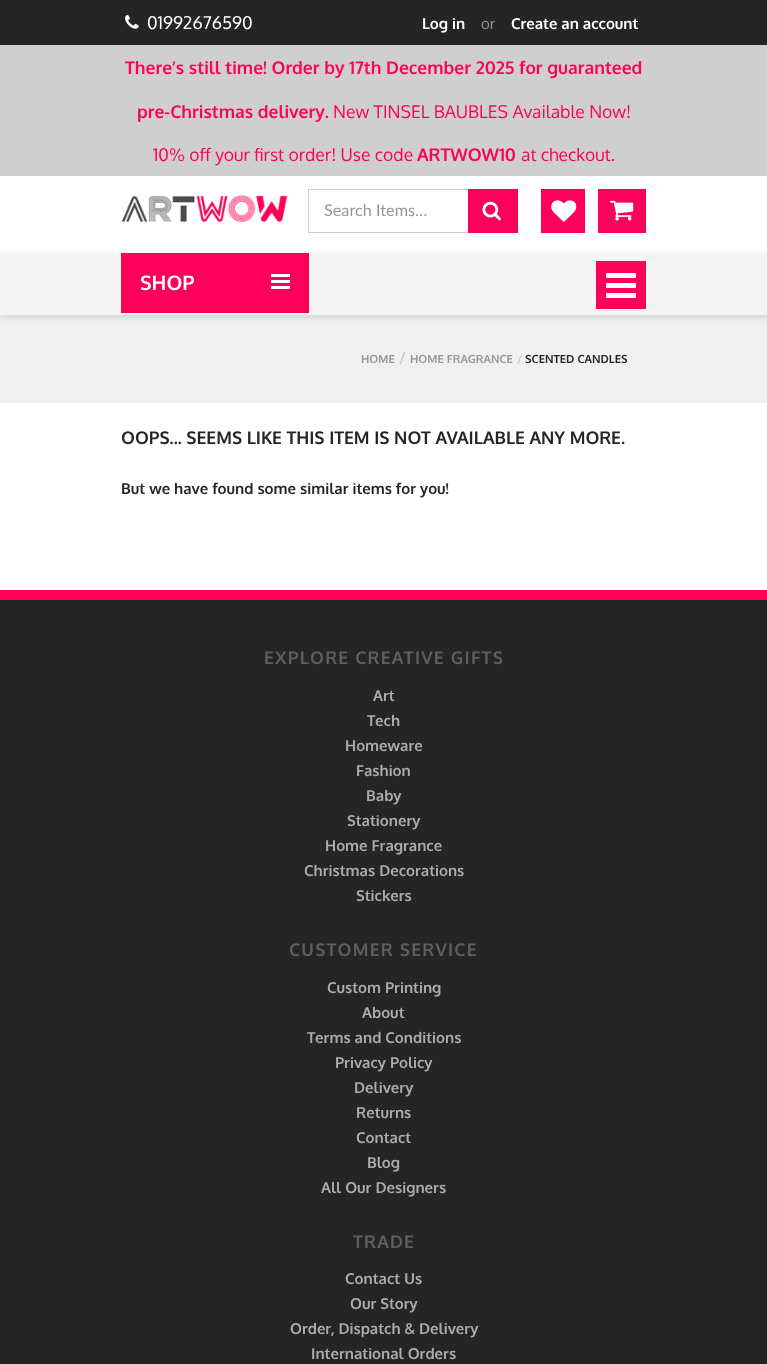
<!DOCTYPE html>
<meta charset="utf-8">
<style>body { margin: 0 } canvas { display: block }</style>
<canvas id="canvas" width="767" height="1364"></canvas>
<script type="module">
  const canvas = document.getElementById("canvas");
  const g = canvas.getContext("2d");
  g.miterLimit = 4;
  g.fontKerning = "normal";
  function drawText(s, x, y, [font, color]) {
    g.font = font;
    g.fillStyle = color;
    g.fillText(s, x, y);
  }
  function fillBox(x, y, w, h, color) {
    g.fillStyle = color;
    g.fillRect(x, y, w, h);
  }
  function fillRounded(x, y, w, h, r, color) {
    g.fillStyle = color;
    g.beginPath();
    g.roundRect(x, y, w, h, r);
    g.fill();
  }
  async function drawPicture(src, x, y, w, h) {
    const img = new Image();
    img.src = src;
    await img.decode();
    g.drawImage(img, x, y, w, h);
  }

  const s1 = ["17.5px Oxygen", "#FFFFFF"];
  const s2 = ["bold 15px Oxygen", "#FFFFFF"];
  const s3 = ["15px Oxygen", "#969696"];
  const s4 = ["bold 17.5px Oxygen", "#FD005A"];
  const s5 = ["17.5px Oxygen", "#FD005A"];
  const s6 = ["16.25px Lato", "#969696"];
  const s7 = ["bold 20px Oxygen", "#FFFFFF"];
  const s8 = ["bold 11.25px Oxygen", "#969696"];
  const s9 = ["bold 15px Oxygen", "#CCCCCC"];
  const s10 = ["bold 11.25px Oxygen", "#CCCCCC"];
  const s11 = ["bold 11.25px Oxygen", "#252525"];
  const s12 = ["bold 17.5px Oxygen", "#252525"];
  const s13 = ["bold 15px Oxygen", "#252525"];
  const s14 = ["bold 17.5px Oxygen", "#5F5F5F"];
  const s15 = ["bold 15px Oxygen", "#ACACAC"];

  fillBox(0, 0, 767, 1364, "#FFFFFF");
  fillBox(0, 0, 767, 45, "#252525");
  await drawPicture("pic1.png", 125, 15, 14, 14);
  drawText("01992676590", 147, 29, s1);
  drawText("Log in", 422, 29, s2);
  drawText("or", 481, 29, s3);
  drawText("Create an account", 511, 29, s2);
  fillBox(0, 45, 767, 131, "#CFCFCF");
  drawText("There’s still time! Order by 17th December 2025 for guaranteed", 125, 74, s4);
  drawText("pre-Christmas delivery.", 137, 118, s4);
  drawText("New TINSEL BAUBLES Available Now!", 333, 118, s5);
  drawText("10% off your first order! Use code", 153, 161, s5);
  drawText("ARTWOW10", 417, 161, s4);
  drawText("at checkout.", 521, 161, s5);
  await drawPicture("pic2.png", 121, 195, 167, 28);
  g.strokeStyle = "#CCCCCC";
  g.strokeRect(308.5, 189.5, 209, 43);
  drawText("Search Items…", 324, 216, s6);
  fillBox(468, 189, 50, 44, "#FD0059");
  await drawPicture("pic3.png", 482, 201, 19, 20);
  fillBox(541, 189, 44, 44, "#FD0059");
  await drawPicture("pic4.png", 551, 200, 26, 22);
  fillBox(598, 189, 48, 44, "#FD0059");
  await drawPicture("pic5.png", 610, 200, 24, 21);
  fillBox(0, 315, 767, 88, "#F0F0F0");
  g.fillStyle = "rgba(0, 0, 0, 0.1)";
  g.filter = "blur(2.5px)";
  g.beginPath();
  g.rect(0, 255, 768, 63);
  g.fill();
  g.filter = "none";
  fillBox(0, 253, 767, 62, "#F5F5F5");
  fillBox(121, 253, 188, 60, "#FD0059");
  drawText("SHOP", 140, 290, s7);
  fillBox(271, 274, 19, 3, "#FFFFFF");
  fillBox(271, 280, 19, 3, "#FFFFFF");
  fillBox(271, 286, 19, 3, "#FFFFFF");
  fillBox(596, 261, 50, 48, "#FD0059");
  fillRounded(606, 273, 30, 5, 1, "#FFFFFF");
  fillRounded(606, 283, 30, 5, 1, "#FFFFFF");
  fillRounded(606, 293, 30, 5, 1, "#FFFFFF");
  drawText("HOME", 361, 363, s8);
  drawText("/", 399, 363, s9);
  drawText("HOME FRAGRANCE", 410, 363, s8);
  drawText("/", 517, 363, s10);
  drawText("SCENTED CANDLES", 525, 363, s11);
  drawText("OOPS... SEEMS LIKE THIS ITEM IS NOT AVAILABLE ANY MORE.", 121, 444, s12);
  drawText("But we have found some similar items for you!", 121, 494, s13);
  fillBox(0, 600, 767, 764, "#252525");
  fillBox(0, 590, 767, 10, "#FD0059");
  g.letterSpacing = "1.25px";
  drawText("EXPLORE CREATIVE GIFTS", 264, 664, s14);
  g.letterSpacing = "0px";
  drawText("Art", 373, 701, s15);
  drawText("Tech", 367, 726, s15);
  drawText("Homeware", 345, 751, s15);
  drawText("Fashion", 356, 776, s15);
  drawText("Baby", 366, 801, s15);
  drawText("Stationery", 347, 826, s15);
  drawText("Home Fragrance", 325, 851, s15);
  drawText("Christmas Decorations", 304, 876, s15);
  drawText("Stickers", 356, 901, s15);
  g.letterSpacing = "1.25px";
  drawText("CUSTOMER SERVICE", 289, 956, s14);
  g.letterSpacing = "0px";
  drawText("Custom Printing", 327, 993, s15);
  drawText("About", 362, 1018, s15);
  drawText("Terms and Conditions", 307, 1043, s15);
  drawText("Privacy Policy", 335, 1068, s15);
  drawText("Delivery", 354, 1093, s15);
  drawText("Returns", 356, 1118, s15);
  drawText("Contact", 356, 1143, s15);
  drawText("Blog", 367, 1168, s15);
  drawText("All Our Designers", 321, 1193, s15);
  g.letterSpacing = "1.25px";
  drawText("TRADE", 353, 1248, s14);
  g.letterSpacing = "0px";
  drawText("Contact Us", 345, 1284, s15);
  drawText("Our Story", 350, 1309, s15);
  drawText("Order, Dispatch & Delivery", 290, 1334, s15);
  drawText("International Orders", 311, 1359, s15);
</script>
